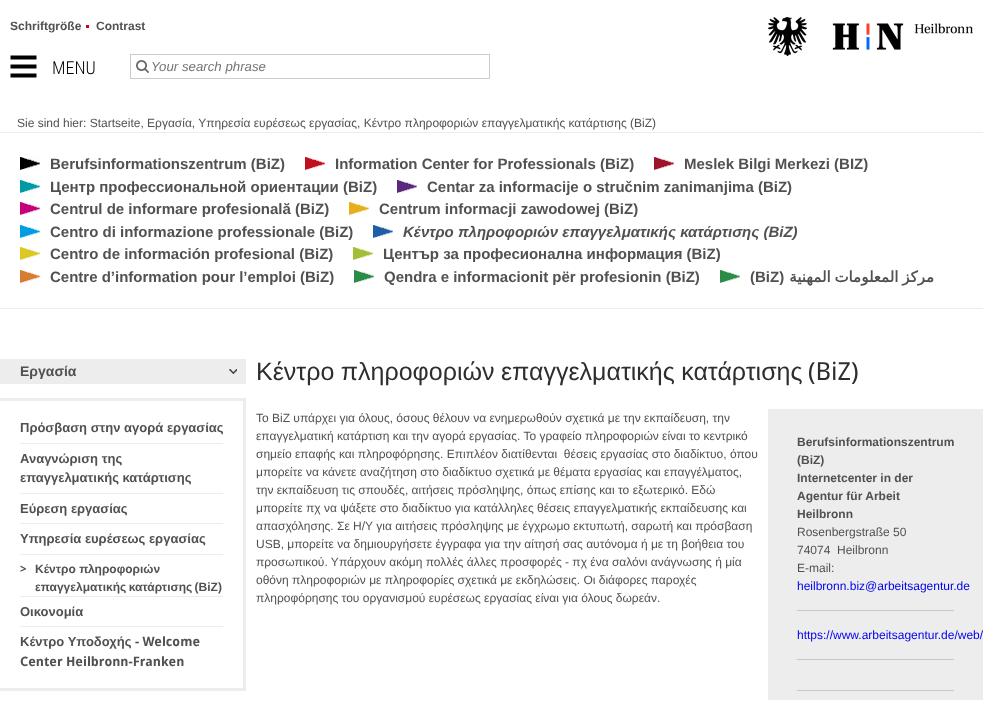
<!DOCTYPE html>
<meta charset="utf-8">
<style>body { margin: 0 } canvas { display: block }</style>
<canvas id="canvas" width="983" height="716"></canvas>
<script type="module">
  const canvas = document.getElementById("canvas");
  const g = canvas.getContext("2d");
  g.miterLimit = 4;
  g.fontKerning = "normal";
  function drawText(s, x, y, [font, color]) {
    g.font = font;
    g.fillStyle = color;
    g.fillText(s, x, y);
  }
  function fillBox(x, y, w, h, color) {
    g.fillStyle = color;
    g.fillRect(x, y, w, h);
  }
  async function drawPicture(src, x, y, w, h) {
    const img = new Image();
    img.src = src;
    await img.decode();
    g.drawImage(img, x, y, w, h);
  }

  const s1 = ["bold 12px Liberation Sans", "#515151"];
  const s2 = ["italic 13.25px Liberation Sans", "#757575"];
  const s3 = ["300 18px Roboto Condensed", "#010101"];
  const s4 = ["12px Liberation Sans", "#515151"];
  const s5 = ["bold 15px Liberation Sans", "#515151"];
  const s6 = ["italic bold 15px Liberation Sans", "#515151"];
  const s7 = ["bold 15px DejaVu Sans", "#515151"];
  const s8 = ["bold 14px Liberation Sans", "#515151"];
  const s9 = ["bold 13px Liberation Sans", "#515151"];
  const s10 = ["bold 12px Droid Sans", "#515151"];
  const s11 = ["bold 13px Droid Sans", "#515151"];
  const s12 = ["25px Liberation Sans", "#2E2D30"];
  const s13 = ["25px Droid Sans", "#2E2D30"];
  const s14 = ["12px Liberation Sans", "#0101EE"];

  fillBox(0, 0, 983, 716, "#FFFFFF");
  drawText("Schriftgröße", 10, 30, s1);
  fillBox(86, 25, 3, 3, "#D4001B");
  drawText("Contrast", 96, 30, s1);
  await drawPicture("pic1.png", 136, 60, 13, 13);
  g.strokeStyle = "#CCCCCC";
  g.strokeRect(130.5, 54.5, 359, 24);
  drawText("Your search phrase", 151, 71, s2);
  await drawPicture("pic2.png", 768, 17, 205, 39);
  await drawPicture("pic3.png", 10, 55, 27, 23);
  drawText("MENU", 52, 74, s3);
  fillBox(0, 132, 983, 1, "#EDEDED");
  drawText("Sie sind hier: Startseite, Εργασία, Υπηρεσία ευρέσεως εργασίας, Κέντρο πληροφοριών επαγγελματικής κατάρτισης (BiZ)", 17, 127, s4);
  fillBox(0, 308, 983, 1, "#EDEDED");
  fillBox(20, 157, 20, 13, "#010101");
  await drawPicture("pic4.png", 20, 157, 20, 13);
  drawText("Berufsinformationszentrum (BiZ)", 50, 169, s5);
  fillBox(305, 157, 20, 13, "#C20F1B");
  await drawPicture("pic5.png", 305, 157, 20, 13);
  drawText("Information Center for Professionals (BiZ)", 335, 169, s5);
  fillBox(654, 157, 20, 13, "#9D142C");
  await drawPicture("pic6.png", 654, 157, 20, 13);
  drawText("Meslek Bilgi Merkezi (BIZ)", 684, 169, s5);
  fillBox(20, 180, 20, 13, "#0199A2");
  await drawPicture("pic7.png", 20, 180, 20, 13);
  drawText("Центр профессиональной ориентации (BiZ)", 50, 192, s5);
  fillBox(397, 180, 20, 13, "#5A287F");
  await drawPicture("pic8.png", 397, 180, 20, 13);
  drawText("Centar za informacije o stručnim zanimanjima (BiZ)", 427, 192, s5);
  fillBox(20, 202, 20, 13, "#C4017A");
  await drawPicture("pic9.png", 20, 202, 20, 13);
  drawText("Centrul de informare profesională (BiZ)", 50, 214, s5);
  fillBox(349, 202, 20, 13, "#E7AF1A");
  await drawPicture("pic10.png", 349, 202, 20, 13);
  drawText("Centrum informacji zawodowej (BiZ)", 379, 214, s5);
  fillBox(20, 225, 20, 13, "#019DE0");
  await drawPicture("pic11.png", 20, 225, 20, 13);
  drawText("Centro di informazione professionale (BiZ)", 50, 237, s5);
  fillBox(373, 225, 20, 13, "#1F5DA6");
  await drawPicture("pic12.png", 373, 225, 20, 13);
  drawText("Κέντρο πληροφοριών επαγγελματικής κατάρτισης (BiZ)", 403, 237, s6);
  fillBox(20, 247, 20, 13, "#DCC822");
  await drawPicture("pic13.png", 20, 247, 20, 13);
  drawText("Centro de información profesional (BiZ)", 50, 259, s5);
  fillBox(353, 247, 20, 13, "#A2C037");
  await drawPicture("pic14.png", 353, 247, 20, 13);
  drawText("Център за професионална информация (BiZ)", 383, 259, s5);
  fillBox(20, 270, 20, 13, "#D67D31");
  await drawPicture("pic15.png", 20, 270, 20, 13);
  drawText("Centre d’information pour l’emploi (BiZ)", 50, 282, s5);
  fillBox(354, 270, 20, 13, "#2A8C46");
  await drawPicture("pic16.png", 354, 270, 20, 13);
  drawText("Qendra e informacionit për profesionin (BiZ)", 384, 282, s5);
  fillBox(720, 270, 20, 13, "#2A8C46");
  await drawPicture("pic16.png", 720, 270, 20, 13);
  drawText("(BiZ)", 750, 282, s5);
  g.wordSpacing = "-1px";
  g.direction = "rtl";
  drawText("مركز المعلومات المهنية", 934, 282, s7);
  fillBox(0, 359, 246, 25, "#EDEDED");
  g.wordSpacing = "0px";
  g.direction = "ltr";
  drawText("Εργασία", 20, 376, s8);
  await drawPicture("pic17.png", 229, 369, 8, 5);
  fillBox(0, 398, 246, 3, "#EDEDED");
  fillBox(243, 398, 3, 293, "#EDEDED");
  fillBox(0, 688, 246, 3, "#EDEDED");
  drawText("Πρόσβαση στην αγορά εργασίας", 20, 432, s9);
  fillBox(20, 443, 203, 1, "#EDEDED");
  drawText("Αναγνώριση της", 20, 463, s9);
  drawText("επαγγελματικής κατάρτισης", 20, 482, s9);
  fillBox(20, 493, 203, 1, "#EDEDED");
  drawText("Εύρεση εργασίας", 20, 513, s9);
  fillBox(20, 523, 203, 1, "#EDEDED");
  drawText("Υπηρεσία ευρέσεως εργασίας", 20, 543, s9);
  fillBox(20, 554, 203, 1, "#EDEDED");
  drawText(">", 20, 573, s10);
  drawText("Κέντρο πληροφοριών", 35, 573, s1);
  g.wordSpacing = "-1px";
  drawText("επαγγελματικής κατάρτισης (BiZ)", 35, 591, s1);
  fillBox(20, 596, 203, 1, "#EDEDED");
  g.wordSpacing = "0px";
  drawText("Οικονομία", 20, 616, s9);
  fillBox(20, 626, 203, 1, "#EDEDED");
  drawText("Κέντρο Υποδοχής", 20, 646, s9);
  drawText("- Welcome", 135, 646, s11);
  drawText("Center Heilbronn-Franken", 20, 666, s11);
  g.wordSpacing = "-0.5px";
  drawText("Κέντρο πληροφοριών επαγγελματικής κατάρτισης", 256, 380, s12);
  g.wordSpacing = "0px";
  drawText("(BiZ)", 808, 380, s13);
  drawText("Το BiZ υπάρχει για όλους, όσους θέλουν να ενημερωθούν σχετικά με την εκπαίδευση, την", 256, 422, s4);
  drawText("επαγγελματική κατάρτιση και την αγορά εργασίας. Το γραφείο πληροφοριών είναι το κεντρικό", 256, 440, s4);
  drawText("σημείο επαφής και πληροφόρησης. Επιπλέον διατίθενται  θέσεις εργασίας στο διαδίκτυο, όπου", 256, 458, s4);
  drawText("μπορείτε να κάνετε αναζήτηση στο διαδίκτυο σχετικά με θέματα εργασίας και επαγγέλματος,", 256, 476, s4);
  drawText("την εκπαίδευση τις σπουδές, αιτήσεις πρόσληψης, όπως επίσης και το εξωτερικό. Εδώ", 256, 494, s4);
  drawText("μπορείτε πχ να ψάξετε στο διαδίκτυο για κατάλληλες θέσεις επαγγελματικής εκπαίδευσης και", 256, 512, s4);
  drawText("απασχόλησης. Σε Η/Υ για αιτήσεις πρόσληψης με έγχρωμο εκτυπωτή, σαρωτή και πρόσβαση", 256, 530, s4);
  drawText("USB, μπορείτε να δημιουργήσετε έγγραφα για την αίτησή σας αυτόνομα ή με τη βοήθεια του", 256, 548, s4);
  drawText("προσωπικού. Υπάρχουν ακόμη πολλές άλλες προσφορές - πχ ένα σαλόνι ανάγνωσης ή μία", 256, 566, s4);
  drawText("οθόνη πληροφοριών με πληροφορίες σχετικά με εκδηλώσεις. Οι διάφορες παροχές", 256, 584, s4);
  drawText("πληροφόρησης του οργανισμού ευρέσεως εργασίας είναι για όλους δωρεάν.", 256, 602, s4);
  fillBox(768, 409, 215, 291, "#EDEDED");
  drawText("Berufsinformationszentrum", 797, 446, s1);
  drawText("(BiZ)", 797, 464, s1);
  drawText("Internetcenter in der", 797, 482, s1);
  drawText("Agentur für Arbeit", 797, 500, s1);
  drawText("Heilbronn", 797, 518, s1);
  drawText("Rosenbergstraße 50", 797, 536, s4);
  drawText("74074", 797, 554, s4);
  drawText("Heilbronn", 837, 554, s4);
  fillBox(797, 610, 157, 1, "#C8C8C8");
  drawText("E-mail:", 797, 572, s4);
  drawText("heilbronn.biz@arbeitsagentur.de", 797, 590, s14);
  fillBox(797, 659, 157, 1, "#C8C8C8");
  drawText("https://www.arbeitsagentur.de/web/", 797, 639, s14);
  fillBox(797, 690, 157, 1, "#C8C8C8");
</script>
